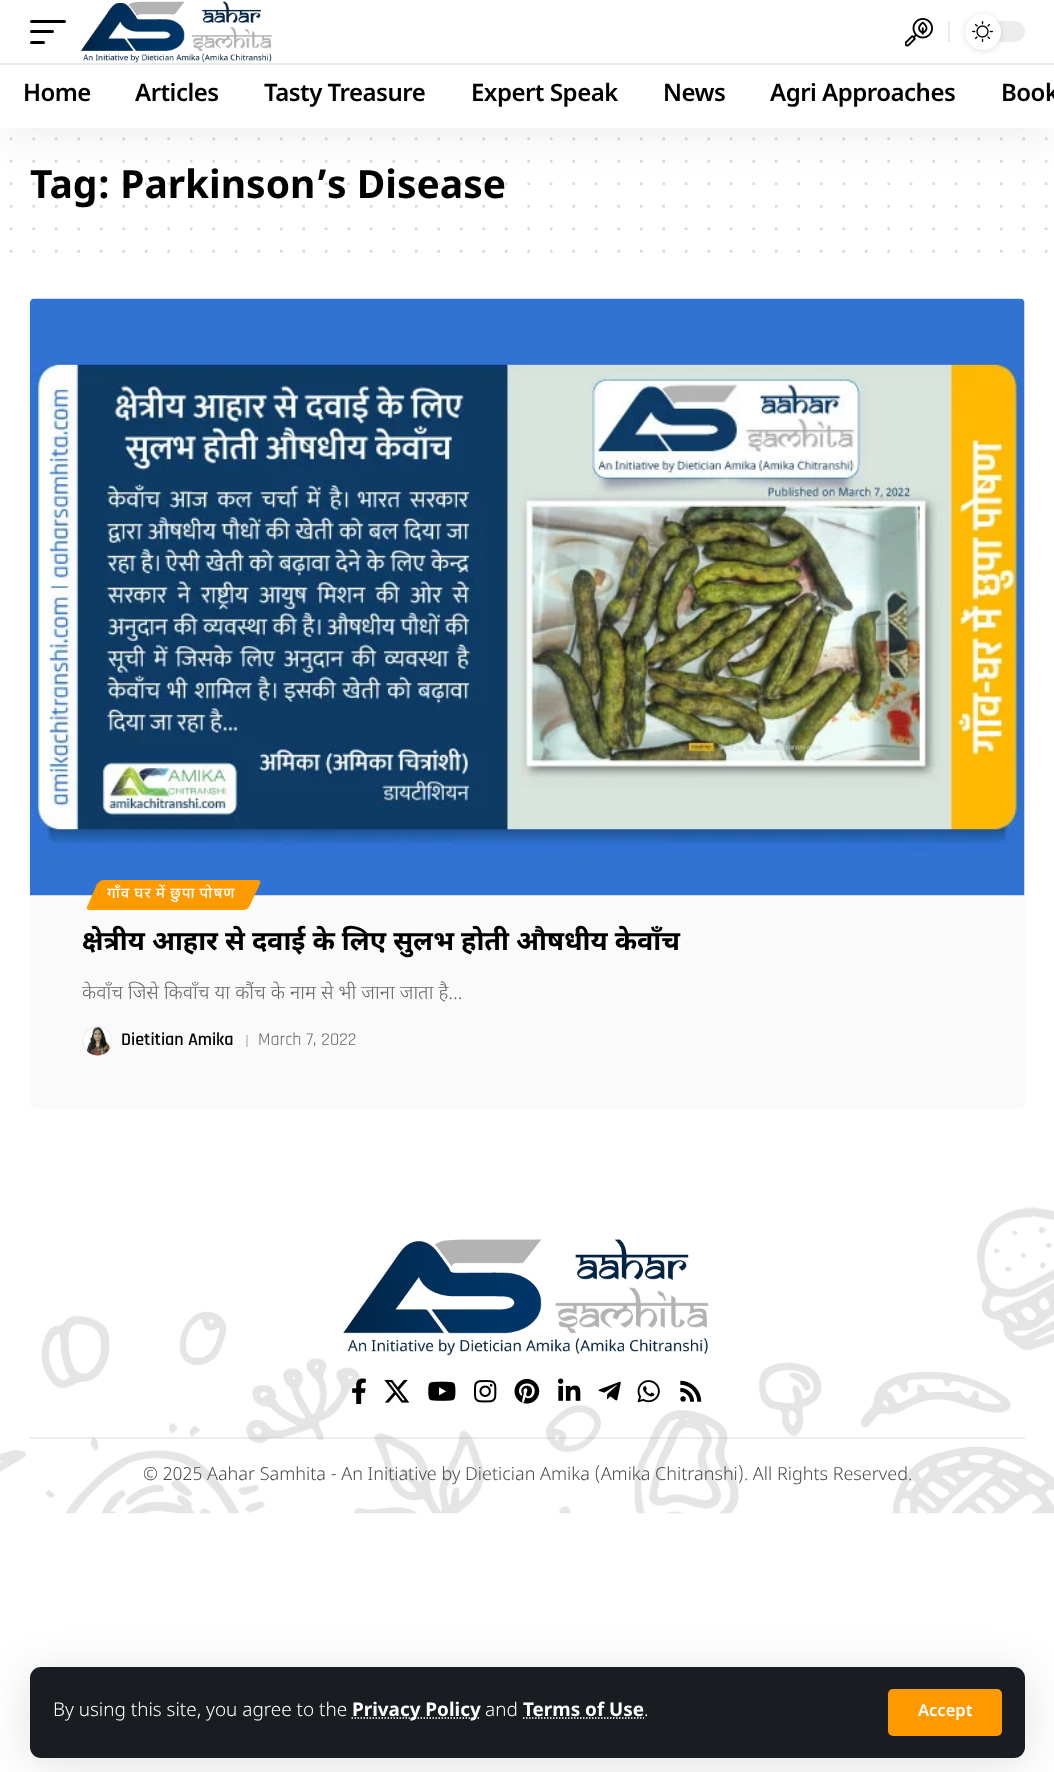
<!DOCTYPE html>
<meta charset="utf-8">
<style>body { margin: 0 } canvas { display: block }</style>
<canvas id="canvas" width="1054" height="1772"></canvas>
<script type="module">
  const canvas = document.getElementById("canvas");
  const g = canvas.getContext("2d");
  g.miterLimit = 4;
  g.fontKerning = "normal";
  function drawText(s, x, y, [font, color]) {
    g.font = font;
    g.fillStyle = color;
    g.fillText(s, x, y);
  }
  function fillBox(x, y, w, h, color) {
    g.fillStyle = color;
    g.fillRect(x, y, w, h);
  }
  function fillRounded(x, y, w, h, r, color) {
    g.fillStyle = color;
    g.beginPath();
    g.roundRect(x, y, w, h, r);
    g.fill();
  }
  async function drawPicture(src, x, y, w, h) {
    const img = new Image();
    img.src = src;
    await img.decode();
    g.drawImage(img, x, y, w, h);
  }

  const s1 = ["bold 39px Noto Sans Devanagari", "#000000"];
  const s2 = ["600 24px Noto Sans Devanagari", "#000000"];
  const s3 = ["300 18.9px Noto Sans Devanagari", "#FFFFFF"];
  const s4 = ["bold 18.9px Noto Sans Devanagari", "#FFFFFF"];
  const s5 = ["600 16.5px Noto Sans Devanagari", "#FFFFFF"];
  const s6 = ["500 15px Noto Sans Devanagari", "#FFFFFF"];
  const s7 = ["bold 27px Noto Sans Devanagari", "#000000"];
  const s8 = ["300 19.5px Noto Sans Devanagari", "#666666"];
  const s9 = ["600 18px Rajdhani", "#000000"];
  const s10 = ["18px Rajdhani", "#666666"];
  const s11 = ["300 18px Noto Sans Devanagari", "#4C4C4C"];

  fillBox(0, 0, 1054, 1772, "#FFFFFF");
  g.beginPath();
  g.moveTo(11.2, 138.8);
  g.lineTo(1046.6, 138.8);
  g.strokeStyle = "#D9D9D9";
  g.lineWidth = 3;
  g.lineCap = "round";
  g.setLineDash([0, 22.5]);
  g.stroke();
  g.beginPath();
  g.moveTo(11.2, 161.2);
  g.lineTo(1046.6, 161.2);
  g.stroke();
  drawText("Tag: Parkinson’s Disease", 30, 198, s1);
  g.beginPath();
  g.moveTo(11.2, 183.8);
  g.lineTo(1046.6, 183.8);
  g.strokeStyle = "rgba(0, 0, 0, 0.15)";
  g.stroke();
  g.fillStyle = "rgba(0, 0, 0, 0.07)";
  g.filter = "blur(22.5px)";
  g.beginPath();
  g.rect(0, 6, 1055, 128);
  g.fill();
  g.filter = "none";
  fillBox(0, 0, 1054, 128, "#FFFFFF");
  fillRounded(30, 20, 36, 3, 1.5, "#000000");
  fillRounded(30, 30, 24, 3, 1.5, "#000000");
  fillRounded(30, 41, 15, 3, 1.5, "#000000");
  await drawPicture("pic1.png", 81, 1, 191, 62);
  await drawPicture("pic2.png", 905, 18, 28, 29);
  fillBox(948, 21, 2, 21, "#EAEAEA");
  fillRounded(965, 21, 60, 21, 10.5, "#EDEDED");
  g.fillStyle = "rgba(0, 0, 0, 0.12)";
  g.filter = "blur(3px)";
  g.beginPath();
  g.roundRect(965, 15, 36, 36, 18);
  g.fill();
  g.filter = "none";
  g.fillStyle = "#FFFFFF";
  g.beginPath();
  g.arc(983, 32, 18, 0, Math.PI * 2);
  g.fill();
  await drawPicture("pic3.png", 972, 21, 21, 21);
  fillBox(0, 63, 1054, 2, "#EAEAEA");
  g.letterSpacing = "-0.5px";
  drawText("Home", 23, 101, s2);
  drawText("Articles", 135, 101, s2);
  drawText("Tasty Treasure", 264, 101, s2);
  drawText("Expert Speak", 471, 101, s2);
  drawText("News", 663, 101, s2);
  drawText("Agri Approaches", 770, 101, s2);
  drawText("Book", 1001, 101, s2);
  g.fillStyle = "rgba(0, 0, 0, 0.12)";
  g.filter = "blur(22.5px)";
  g.beginPath();
  g.roundRect(30, 1673, 995, 91, 11);
  g.fill();
  g.filter = "none";
  fillRounded(30, 1667, 995, 91, 11, "#191C20");
  g.letterSpacing = "0px";
  drawText("By using this site, you agree to the", 53, 1716, s3);
  g.beginPath();
  g.moveTo(351.5, 1718);
  g.lineTo(480.5, 1718);
  g.strokeStyle = "#FFFFFF";
  g.lineWidth = 1.5;
  g.lineCap = "butt";
  g.setLineDash([1.5, 1.5]);
  g.stroke();
  drawText("Privacy Policy", 352, 1716, s4);
  drawText("and", 485, 1716, s3);
  drawText("Terms of Use", 523, 1716, s4);
  g.beginPath();
  g.moveTo(523, 1718);
  g.lineTo(644, 1718);
  g.stroke();
  drawText(".", 644, 1716, s3);
  fillRounded(888, 1689, 114, 47, 5, "#FF9900");
  drawText("Accept", 918, 1716, s5);
  g.beginPath();
  g.moveTo(11.2, 206.2);
  g.lineTo(1046.6, 206.2);
  g.strokeStyle = "rgba(0, 0, 0, 0.15)";
  g.lineWidth = 3;
  g.lineCap = "round";
  g.setLineDash([0, 22.5]);
  g.stroke();
  g.beginPath();
  g.moveTo(11.2, 228.8);
  g.lineTo(1046.6, 228.8);
  g.strokeStyle = "#D9D9D9";
  g.stroke();
  g.beginPath();
  g.moveTo(11.2, 251.2);
  g.lineTo(1046.6, 251.2);
  g.stroke();
  fillRounded(30, 299, 995, 810, 5, "#FAFAFA");
  await drawPicture("pic4.png", 30, 298, 995, 598);
  g.fillStyle = "#FF9900";
  g.beginPath();
  g.moveTo(104, 880);
  g.lineTo(258, 880);
  g.bezierCurveTo(260, 880, 261, 882, 260, 884);
  g.lineTo(250, 905);
  g.bezierCurveTo(249, 908, 246, 910, 244, 910);
  g.lineTo(90, 910);
  g.bezierCurveTo(87, 910, 86, 908, 88, 905);
  g.lineTo(97, 884);
  g.bezierCurveTo(99, 882, 101, 880, 104, 880);
  g.closePath();
  g.fill();
  g.letterSpacing = "1.05px";
  g.wordSpacing = "-1px";
  drawText("गाँव घर में छुपा पोषण", 107, 898, s6);
  g.letterSpacing = "0px";
  g.wordSpacing = "0px";
  drawText("क्षेत्रीय आहार से दवाई के लिए सुलभ होती औषधीय केवाँच", 82, 950, s7);
  drawText("केवाँच जिसे किवाँच या कौंच के नाम से भी जाना जाता है…", 82, 999, s8);
  await drawPicture("pic5.png", 82, 1026, 31, 30);
  drawText("Dietitian Amika", 121, 1045, s9);
  fillBox(246, 1035, 2, 12, "#CECECE");
  drawText("March 7, 2022", 258, 1045, s10);
  await drawPicture("pic6.png", 0, 1207, 1054, 307);
  await drawPicture("pic7.png", 343, 1239, 366, 117);
  await drawPicture("pic8.png", 352, 1378, 14, 26);
  await drawPicture("pic9.png", 384, 1379, 26, 24);
  await drawPicture("pic10.png", 428, 1381, 28, 20);
  await drawPicture("pic11.png", 474, 1380, 23, 23);
  await drawPicture("pic12.png", 514, 1378, 26, 26);
  await drawPicture("pic13.png", 558, 1378, 23, 23);
  await drawPicture("pic14.png", 598, 1381, 23, 20);
  await drawPicture("pic15.png", 637, 1380, 23, 23);
  await drawPicture("pic16.png", 680, 1380, 22, 22);
  fillBox(30, 1437, 995, 2, "rgba(136, 136, 136, 0.15)");
  drawText("© 2025 Aahar Samhita - An Initiative by Dietician Amika (Amika Chitranshi). All Rights Reserved.", 143, 1480, s11);
</script>
